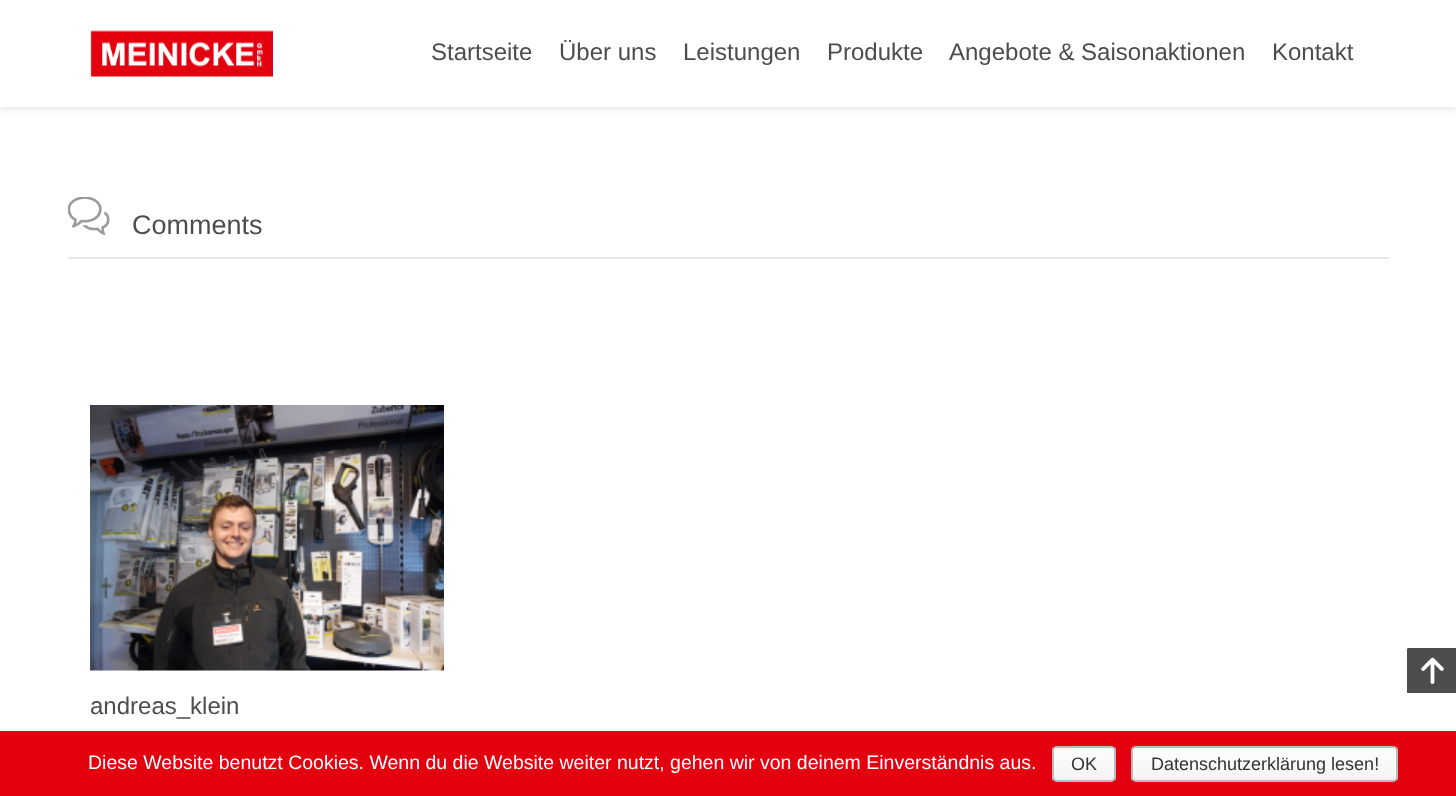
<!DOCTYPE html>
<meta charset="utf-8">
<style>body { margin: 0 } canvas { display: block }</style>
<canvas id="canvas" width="1456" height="796"></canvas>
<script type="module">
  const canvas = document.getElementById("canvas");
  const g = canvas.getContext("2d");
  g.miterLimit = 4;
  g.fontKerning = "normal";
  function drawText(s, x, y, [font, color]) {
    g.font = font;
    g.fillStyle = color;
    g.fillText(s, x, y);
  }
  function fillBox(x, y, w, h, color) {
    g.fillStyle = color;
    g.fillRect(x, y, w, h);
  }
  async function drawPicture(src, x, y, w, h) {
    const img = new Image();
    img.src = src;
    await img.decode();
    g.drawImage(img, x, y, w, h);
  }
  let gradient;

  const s1 = ["24px Liberation Sans", "#4D4D4D"];
  const s2 = ["27px Liberation Sans", "#4D4D4D"];
  const s3 = ["19.5px Liberation Sans", "#FFFFFF"];
  const s4 = ["18px Liberation Sans", "#333333"];

  fillBox(0, 0, 1456, 796, "#FFFFFF");
  g.fillStyle = "rgba(0, 0, 0, 0.09)";
  g.filter = "blur(3px)";
  g.beginPath();
  g.rect(0, 3, 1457, 107);
  g.fill();
  g.filter = "none";
  fillBox(0, 0, 1456, 107, "#FFFFFF");
  await drawPicture("pic1.png", 90, 30, 183, 47);
  drawText("Startseite", 431, 60, s1);
  drawText("Über uns", 559, 60, s1);
  drawText("Leistungen", 683, 60, s1);
  drawText("Produkte", 827, 60, s1);
  drawText("Angebote & Saisonaktionen", 949, 60, s1);
  drawText("Kontakt", 1272, 60, s1);
  fillBox(68, 257, 1321, 2, "#E8E8E8");
  await drawPicture("pic2.png", 68, 197, 42, 38);
  drawText("Comments", 132, 234, s2);
  await drawPicture("pic3.png", 90, 405, 354, 266);
  drawText("andreas_klein", 90, 714, s1);
  g.beginPath();
  g.moveTo(1408.5, 648);
  g.lineTo(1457, 648);
  g.lineTo(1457, 693);
  g.lineTo(1407, 693);
  g.lineTo(1407, 649.5);
  g.bezierCurveTo(1407, 648.5, 1407.5, 648, 1408.5, 648);
  g.closePath();
  g.fill();
  await drawPicture("pic4.png", 1421, 657, 23, 27);
  fillBox(0, 731, 1456, 65, "#E3000F");
  drawText("Diese Website benutzt Cookies. Wenn du die Website weiter nutzt, gehen wir von deinem Einverständnis aus.", 88, 769, s3);
  g.save();
  g.beginPath();
  g.roundRect(1052, 746, 64, 36, 5);
  g.clip();
  gradient = g.createLinearGradient(1084, 747, 1084, 780);
  gradient.addColorStop(0, "#FEFEFE");
  gradient.addColorStop(1, "#F4F4F4");
  g.fillStyle = gradient;
  g.fillRect(1052, 747, 64, 33);
  g.restore();
  g.beginPath();
  g.roundRect(1053, 747, 62, 34, 4);
  g.strokeStyle = "#BBBBBB";
  g.lineWidth = 2;
  g.stroke();
  drawText("OK", 1071, 770, s4);
  g.save();
  g.beginPath();
  g.roundRect(1131, 746, 267, 36, 5);
  g.clip();
  gradient = g.createLinearGradient(1265, 747, 1265, 780);
  gradient.addColorStop(0, "#FEFEFE");
  gradient.addColorStop(1, "#F4F4F4");
  g.fillStyle = gradient;
  g.fillRect(1131, 747, 267, 33);
  g.restore();
  g.beginPath();
  g.roundRect(1132, 747, 265, 34, 4);
  g.stroke();
  drawText("Datenschutzerklärung lesen!", 1151, 770, s4);
</script>
